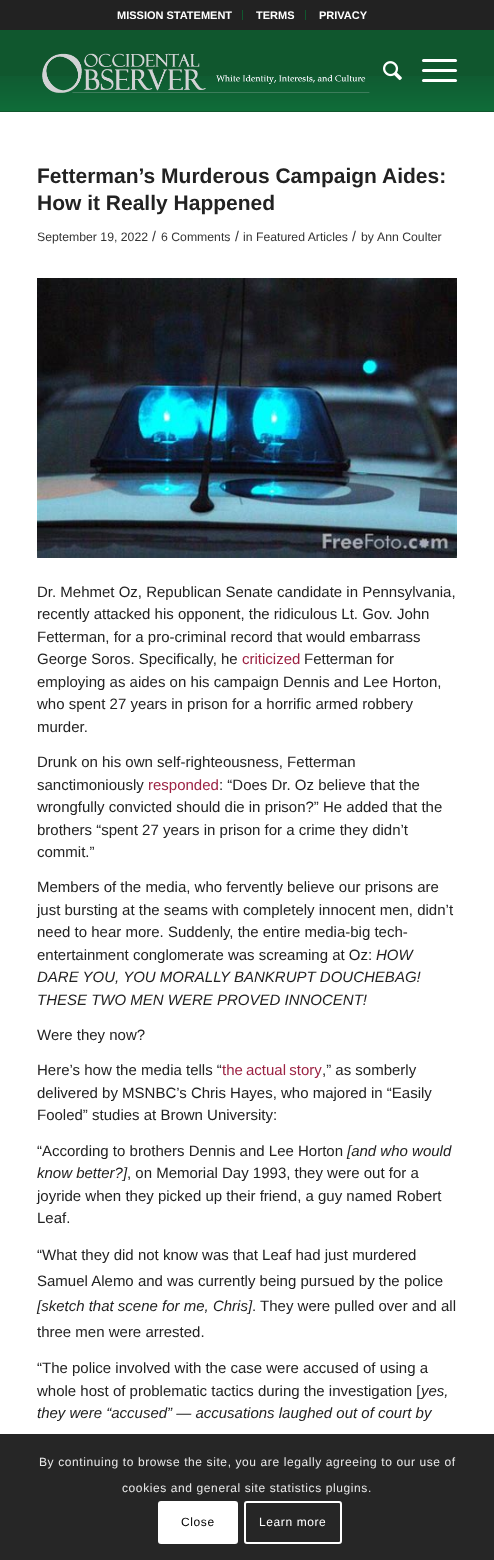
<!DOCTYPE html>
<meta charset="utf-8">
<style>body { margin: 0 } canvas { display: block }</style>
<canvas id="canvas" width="494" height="1560"></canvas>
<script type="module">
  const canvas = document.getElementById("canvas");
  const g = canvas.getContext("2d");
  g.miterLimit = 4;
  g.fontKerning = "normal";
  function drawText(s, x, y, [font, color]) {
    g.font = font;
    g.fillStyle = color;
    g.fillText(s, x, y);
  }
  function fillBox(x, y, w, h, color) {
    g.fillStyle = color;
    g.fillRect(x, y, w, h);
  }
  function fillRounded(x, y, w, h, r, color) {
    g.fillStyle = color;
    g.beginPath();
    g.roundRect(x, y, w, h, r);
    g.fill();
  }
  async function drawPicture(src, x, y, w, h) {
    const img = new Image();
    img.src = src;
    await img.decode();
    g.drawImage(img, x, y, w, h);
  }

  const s1 = ["bold 11px Liberation Sans", "#FFFFFF"];
  const s2 = ["bold 21px Liberation Sans", "#222222"];
  const s3 = ["12.25px Liberation Sans", "#333333"];
  const s4 = ["14px Liberation Sans", "#333333"];
  const s5 = ["15px Liberation Sans", "#222222"];
  const s6 = ["15px Liberation Sans", "#9C2243"];
  const s7 = ["italic 15px Liberation Sans", "#222222"];
  const s8 = ["12px Liberation Sans", "#E9E9E9"];
  const s9 = ["12px Liberation Sans", "#000000"];
  const s10 = ["12px Liberation Sans", "#FFFFFF"];

  fillBox(0, 0, 494, 1560, "#FFFFFF");
  fillBox(0, 0, 494, 30, "#222222");
  fillBox(242, 10, 1, 10, "#10572E");
  drawText("MISSION STATEMENT", 117, 19, s1);
  fillBox(305, 10, 1, 10, "#10572E");
  drawText("TERMS", 256, 19, s1);
  drawText("PRIVACY", 319, 19, s1);
  fillBox(0, 30, 494, 46, "#10572E");
  await drawPicture("pic1.png", 0, 76, 494, 35);
  fillBox(0, 111, 494, 1, "#10572E");
  await drawPicture("pic2.png", 42, 53, 328, 40);
  await drawPicture("pic3.png", 383, 61, 19, 20);
  fillRounded(422, 69, 35, 3, 1.5, "#FFFFFF");
  fillRounded(422, 59, 35, 3, 1.5, "#FFFFFF");
  fillRounded(422, 79, 35, 3, 1.5, "#FFFFFF");
  drawText("Fetterman’s Murderous Campaign Aides:", 37, 183, s2);
  drawText("How it Really Happened", 37, 210, s2);
  drawText("September 19, 2022", 37, 241, s3);
  drawText("/", 152, 241, s4);
  drawText("6 Comments", 161, 241, s3);
  drawText("/", 235, 241, s4);
  drawText("in Featured Articles", 243, 241, s3);
  drawText("/", 352, 241, s4);
  drawText("by", 361, 241, s3);
  drawText("Ann Coulter", 377, 241, s3);
  await drawPicture("pic4.png", 37, 278, 420, 280);
  drawText("Dr. Mehmet Oz, Republican Senate candidate in Pennsylvania,", 37, 597, s5);
  drawText("recently attacked his opponent, the ridiculous Lt. Gov. John", 37, 619, s5);
  drawText("Fetterman, for a pro-criminal record that would embarrass", 37, 642, s5);
  drawText("George Soros. Specifically, he", 37, 664, s5);
  drawText("criticized", 242, 664, s6);
  drawText("Fetterman for", 304, 664, s5);
  drawText("employing as aides on his campaign Dennis and Lee Horton,", 37, 687, s5);
  drawText("who spent 27 years in prison for a horrific armed robbery", 37, 709, s5);
  drawText("murder.", 37, 732, s5);
  drawText("Drunk on his own self-righteousness, Fetterman", 37, 767, s5);
  drawText("sanctimoniously", 37, 790, s5);
  drawText("responded", 148, 790, s6);
  drawText(": “Does Dr. Oz believe that the", 219, 790, s5);
  drawText("wrongfully convicted should die in prison?” He added that the", 37, 812, s5);
  drawText("brothers “spent 27 years in prison for a crime they didn’t", 37, 835, s5);
  drawText("commit.”", 37, 857, s5);
  drawText("Members of the media, who fervently believe our prisons are", 37, 892, s5);
  drawText("just bursting at the seams with completely innocent men, didn’t", 37, 915, s5);
  drawText("need to hear more. Suddenly, the entire media-big tech-", 37, 937, s5);
  drawText("entertainment conglomerate was screaming at Oz:", 37, 960, s5);
  drawText("HOW", 376, 960, s7);
  drawText("DARE YOU, YOU MORALLY BANKRUPT DOUCHEBAG!", 37, 982, s7);
  drawText("THESE TWO MEN WERE PROVED INNOCENT!", 37, 1005, s7);
  drawText("Were they now?", 37, 1040, s5);
  drawText("Here’s how the media tells “", 37, 1075, s5);
  g.wordSpacing = "-1px";
  drawText("the actual story", 222, 1075, s6);
  g.wordSpacing = "0px";
  drawText(",” as somberly", 322, 1075, s5);
  drawText("delivered by MSNBC’s Chris Hayes, who majored in “Easily", 37, 1098, s5);
  drawText("Fooled” studies at Brown University:", 37, 1120, s5);
  drawText("“According to brothers Dennis and Lee Horton", 37, 1156, s5);
  drawText("[and who would", 347, 1156, s7);
  drawText("know better?]", 37, 1178, s7);
  drawText(", on Memorial Day 1993, they were out for a", 127, 1178, s5);
  drawText("joyride when they picked up their friend, a guy named Robert", 37, 1201, s5);
  drawText("Leaf.", 37, 1223, s5);
  drawText("“What they did not know was that Leaf had just murdered", 37, 1260, s5);
  drawText("Samuel Alemo and was currently being pursued by the police", 37, 1286, s5);
  drawText("[sketch that scene for me, Chris]", 37, 1311, s7);
  drawText(". They were pulled over and all", 252, 1311, s5);
  drawText("three men were arrested.", 37, 1337, s5);
  drawText("“The police involved with the case were accused of using a", 37, 1373, s5);
  drawText("whole host of problematic tactics during the investigation [", 37, 1396, s5);
  drawText("yes,", 421, 1396, s7);
  drawText("they were “accused” — accusations laughed out of court by", 37, 1418, s7);
  fillBox(0, 1434, 494, 126, "rgba(0, 0, 0, 0.85)");
  g.letterSpacing = "0.6px";
  drawText("By continuing to browse the site, you are legally agreeing to our use of", 39, 1466, s8);
  drawText("cookies and general site statistics plugins.", 122, 1492, s8);
  fillRounded(158, 1501, 80, 43, 3, "#FFFFFF");
  drawText("Close", 181, 1526, s9);
  g.beginPath();
  g.roundRect(245, 1502, 96, 41, 2);
  g.strokeStyle = "#FFFFFF";
  g.lineWidth = 2;
  g.stroke();
  drawText("Learn more", 259, 1526, s10);
</script>
